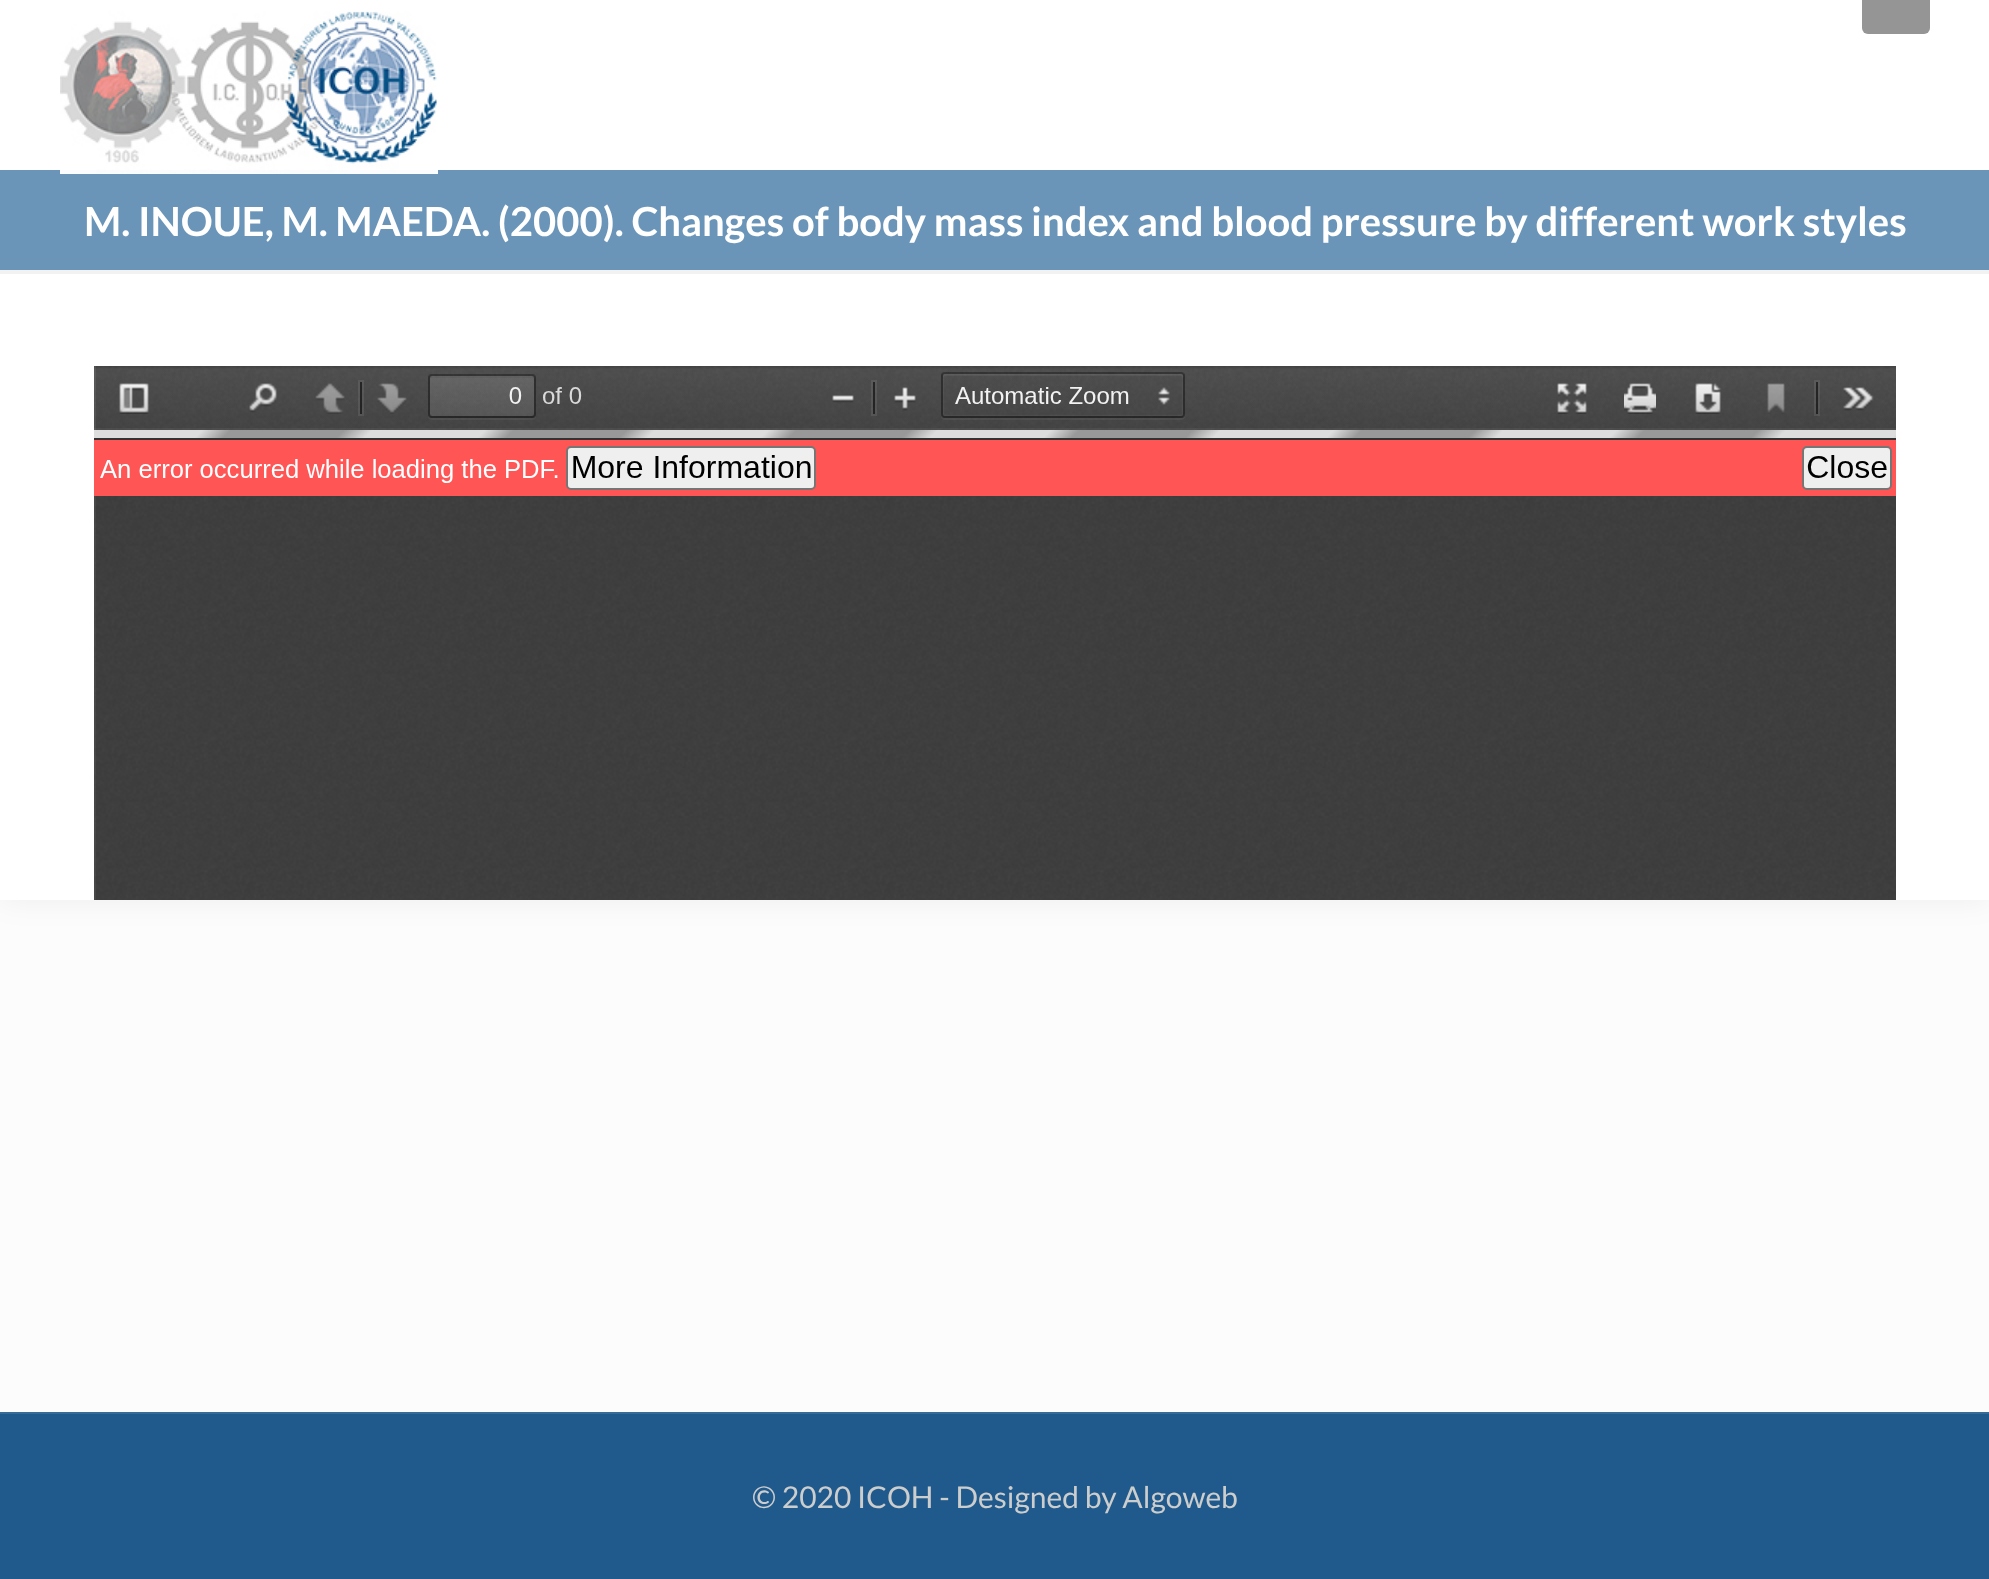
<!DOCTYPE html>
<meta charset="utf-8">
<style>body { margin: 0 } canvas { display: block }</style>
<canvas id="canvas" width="1989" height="1579"></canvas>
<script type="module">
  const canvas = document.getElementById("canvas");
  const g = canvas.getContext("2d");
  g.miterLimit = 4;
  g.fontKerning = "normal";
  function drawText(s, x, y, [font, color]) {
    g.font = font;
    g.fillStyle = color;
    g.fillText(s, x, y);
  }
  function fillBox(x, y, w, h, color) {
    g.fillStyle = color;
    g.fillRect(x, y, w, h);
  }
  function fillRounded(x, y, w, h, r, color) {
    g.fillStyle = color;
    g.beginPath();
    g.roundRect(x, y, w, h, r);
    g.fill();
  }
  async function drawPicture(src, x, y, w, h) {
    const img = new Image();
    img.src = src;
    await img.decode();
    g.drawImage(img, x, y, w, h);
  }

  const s1 = ["bold 40px Lato", "#FFFFFF"];
  const s2 = ["30px Lato", "#CCCDCD"];

  fillBox(0, 0, 1989, 1579, "#FCFCFC");
  g.fillStyle = "rgba(0, 0, 0, 0.06)";
  g.filter = "blur(15px)";
  g.beginPath();
  g.rect(0, 0, 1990, 900);
  g.fill();
  g.filter = "none";
  fillBox(0, 0, 1989, 900, "#FFFFFF");
  fillBox(0, 170, 1989, 100, "#6A95B8");
  await drawPicture("pic1.png", 60, 11, 378, 163);
  fillRounded(1862, -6, 68, 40, 6, "#959595");
  drawText("M. INOUE, M. MAEDA. (2000). Changes of body mass index and blood pressure by different work styles", 84, 236, s1);
  fillBox(0, 270, 1989, 4, "#F2F2F2");
  await drawPicture("pic2.png", 94, 366, 1802, 534);
  fillBox(0, 1414, 1989, 165, "#205A8C");
  fillBox(0, 1412, 1989, 2, "#366B98");
  drawText("© 2020 ICOH - Designed by Algoweb", 752, 1508, s2);
</script>
